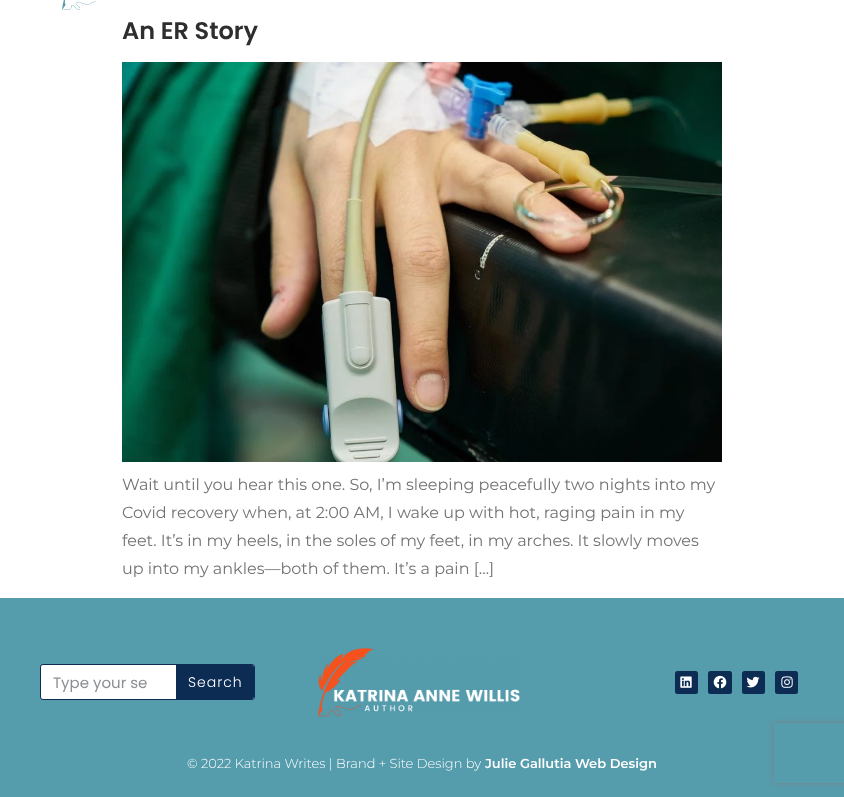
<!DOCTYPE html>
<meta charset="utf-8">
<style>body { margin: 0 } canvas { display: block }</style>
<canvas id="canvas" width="844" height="797"></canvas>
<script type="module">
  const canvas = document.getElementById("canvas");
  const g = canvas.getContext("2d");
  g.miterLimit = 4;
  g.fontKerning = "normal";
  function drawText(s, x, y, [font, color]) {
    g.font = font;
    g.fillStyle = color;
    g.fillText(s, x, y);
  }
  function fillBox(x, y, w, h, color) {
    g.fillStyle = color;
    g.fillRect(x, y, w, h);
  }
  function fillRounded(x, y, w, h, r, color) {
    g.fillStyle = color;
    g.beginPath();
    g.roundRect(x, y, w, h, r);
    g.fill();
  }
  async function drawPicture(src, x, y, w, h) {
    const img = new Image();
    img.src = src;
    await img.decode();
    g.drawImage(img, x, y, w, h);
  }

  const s1 = ["600 24px Poppins", "#2F2E2E"];
  const s2 = ["16px Montserrat", "#737373"];
  const s3 = ["15px Poppins", "#8C8F93"];
  const s4 = ["300 14px Poppins", "#FFFFFF"];
  const s5 = ["300 13px Montserrat", "#FFFFFF"];
  const s6 = ["600 13px Montserrat", "#FFFFFF"];

  fillBox(0, 0, 844, 797, "#FFFFFF");
  await drawPicture("pic1.png", 62, 0, 34, 10);
  drawText("An ER Story", 122, 39, s1);
  await drawPicture("pic2.png", 122, 62, 600, 400);
  drawText("Wait until you hear this one. So, I’m sleeping peacefully two nights into my", 122, 490, s2);
  drawText("Covid recovery when, at 2:00 AM, I wake up with hot, raging pain in my", 122, 518, s2);
  drawText("feet. It’s in my heels, in the soles of my feet, in my arches. It slowly moves", 122, 546, s2);
  drawText("up into my ankles—both of them. It’s a pain […]", 122, 574, s2);
  fillBox(0, 598, 844, 199, "#559CAD");
  g.fillStyle = "#FFFFFF";
  g.beginPath();
  g.roundRect(40.5, 664.5, 214, 35, 2.5);
  g.fill();
  g.strokeStyle = "#0D2C54";
  g.stroke();
  drawText("Type your se", 53, 688, s3);
  g.fillStyle = "#0D2C54";
  g.beginPath();
  g.roundRect(176, 665, 78, 34, [0, 2, 2, 0]);
  g.fill();
  g.letterSpacing = "1px";
  drawText("Search", 188, 687, s4);
  await drawPicture("pic3.png", 318, 648, 202, 69);
  fillRounded(675, 671, 23, 23, 2.5, "#0D2C54");
  await drawPicture("pic4.png", 680, 676, 12, 12);
  fillRounded(708, 671, 24, 23, 2.5, "#0D2C54");
  await drawPicture("pic5.png", 713, 675, 14, 14);
  fillRounded(742, 671, 23, 23, 2.5, "#0D2C54");
  await drawPicture("pic6.png", 746, 676, 14, 12);
  fillRounded(775, 671, 23, 23, 2.5, "#0D2C54");
  await drawPicture("pic7.png", 781, 676, 12, 12);
  g.letterSpacing = "0px";
  drawText("© 2022 Katrina Writes | Brand + Site Design by", 187, 768, s5);
  drawText("Julie Gallutia Web Design", 485, 768, s6);
  g.save();
  g.beginPath();
  g.moveTo(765, 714);
  g.lineTo(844, 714);
  g.lineTo(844, 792);
  g.lineTo(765, 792);
  g.closePath();
  g.moveTo(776, 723);
  g.lineTo(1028, 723);
  g.bezierCurveTo(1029, 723, 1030, 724, 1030, 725);
  g.lineTo(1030, 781);
  g.bezierCurveTo(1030, 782, 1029, 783, 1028, 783);
  g.lineTo(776, 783);
  g.bezierCurveTo(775, 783, 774, 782, 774, 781);
  g.lineTo(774, 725);
  g.bezierCurveTo(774, 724, 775, 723, 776, 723);
  g.closePath();
  g.clip("evenodd");
  g.fillStyle = "#808080";
  g.filter = "blur(2.5px)";
  g.beginPath();
  g.roundRect(774, 723, 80, 60, 2);
  g.fill();
  g.filter = "none";
  g.restore();
</script>
